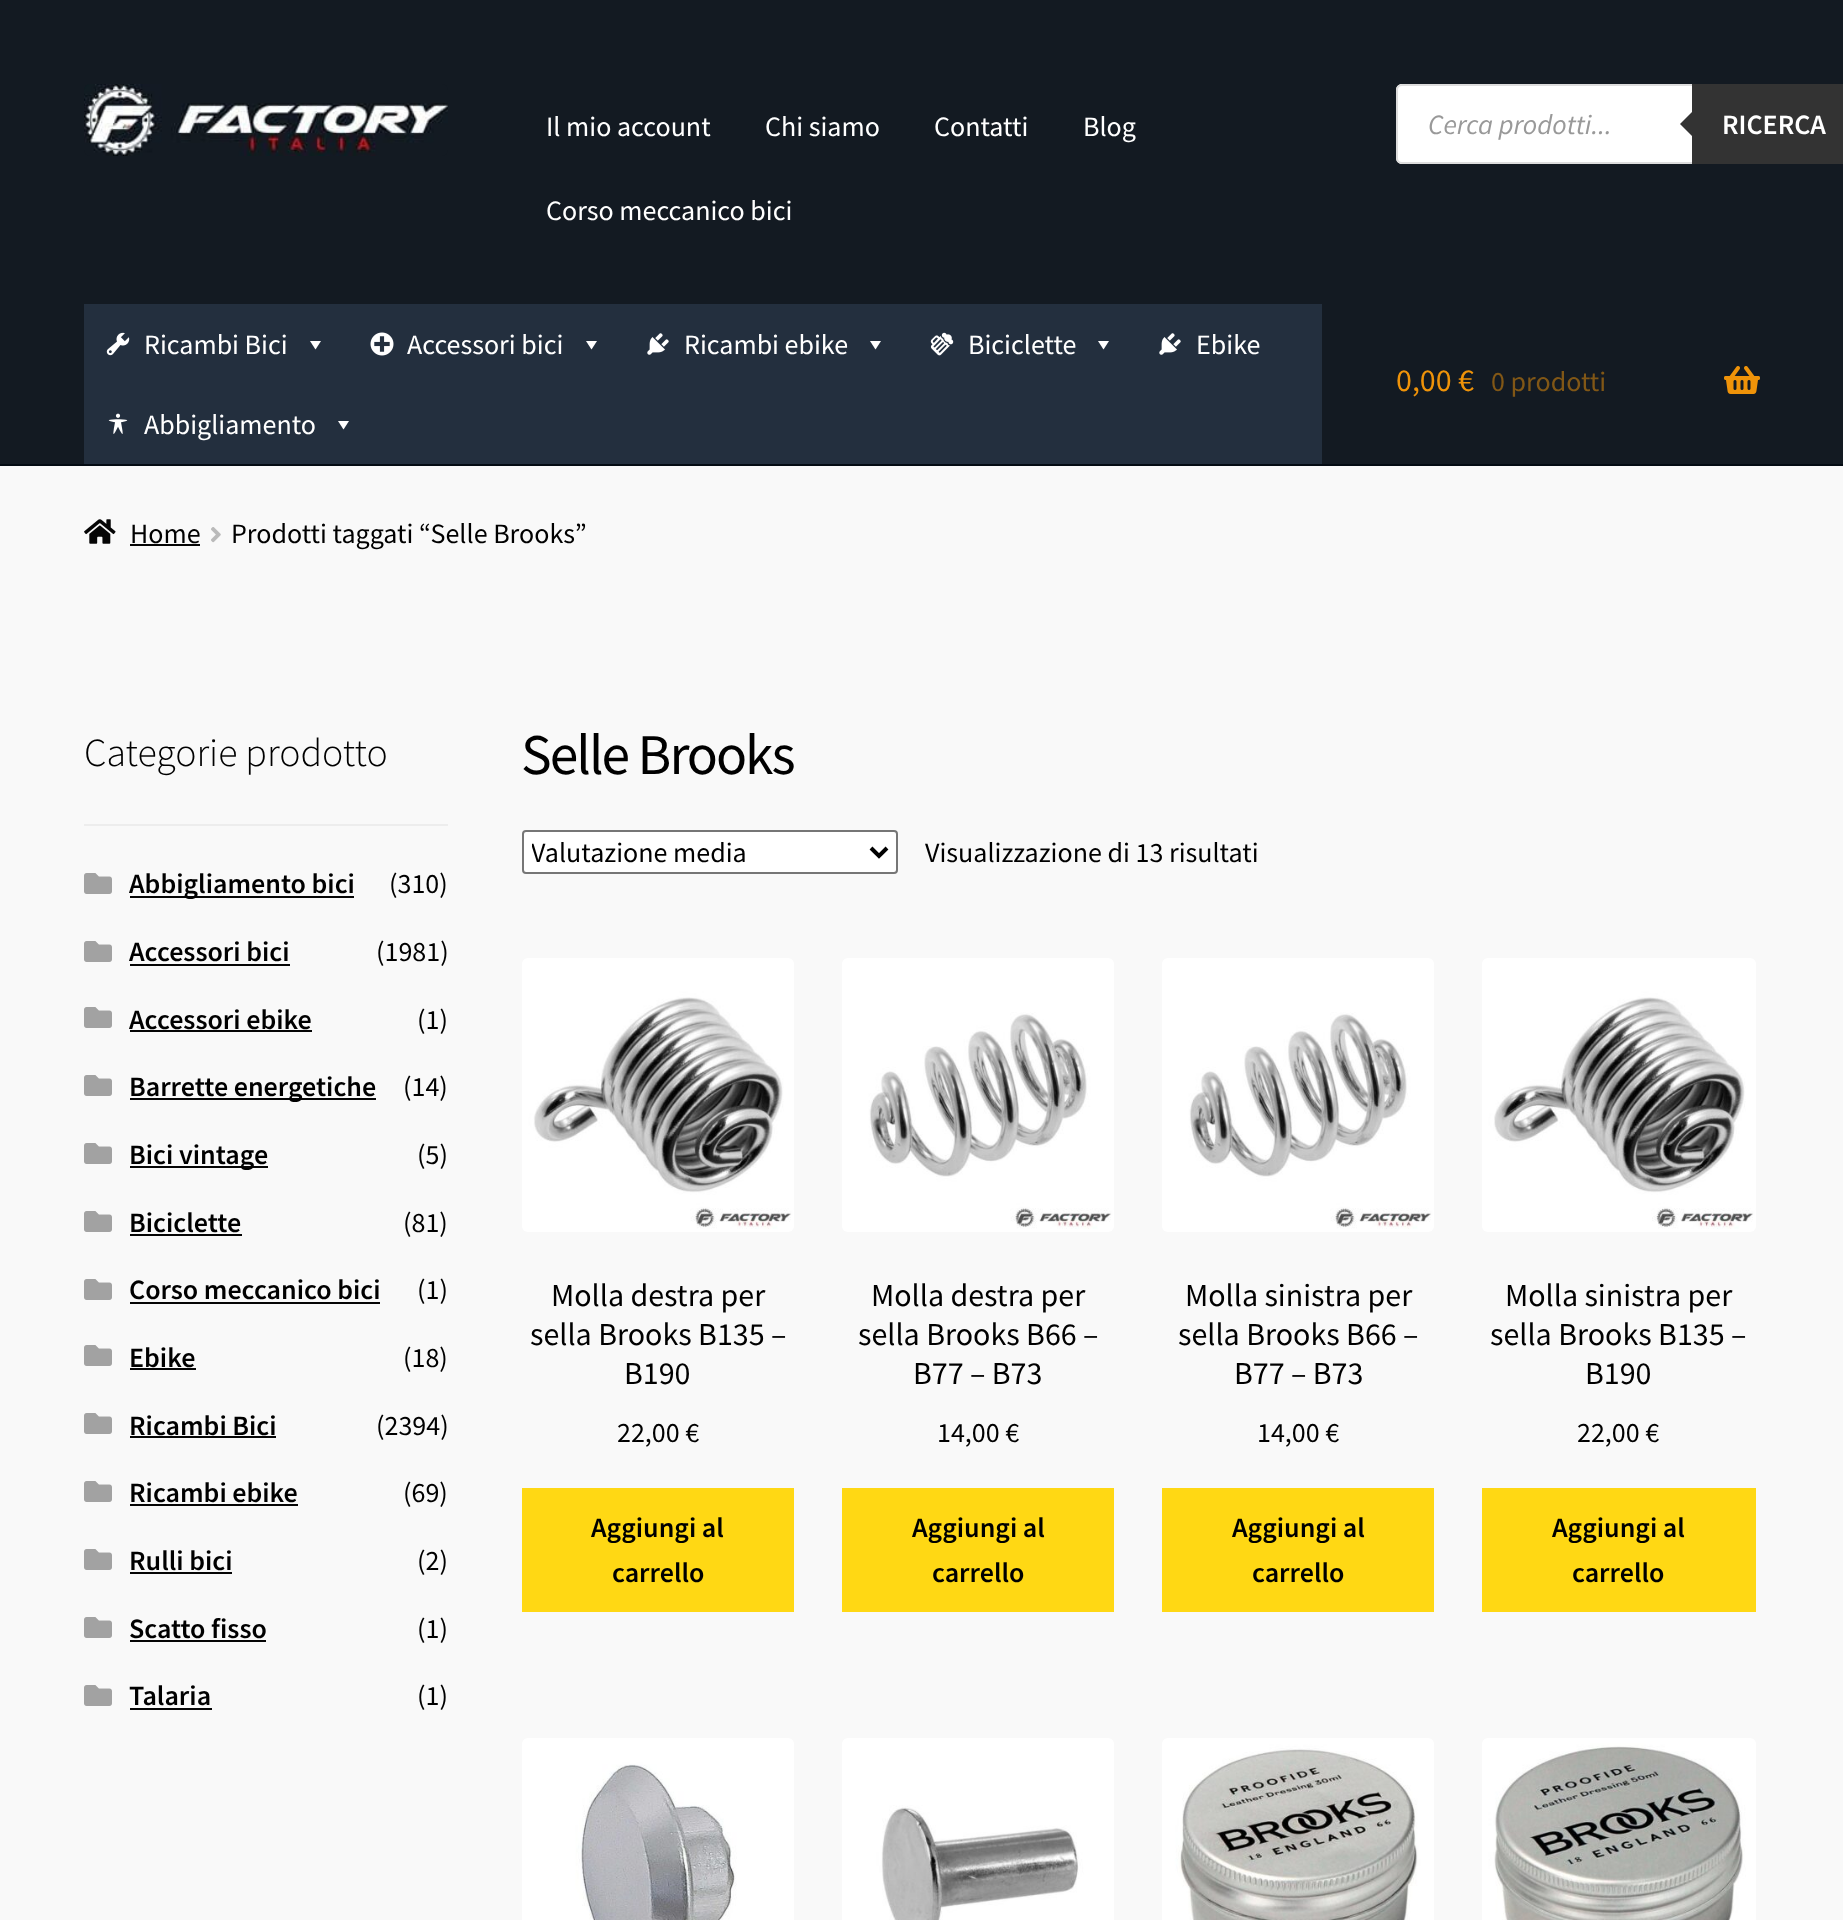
<!DOCTYPE html>
<meta charset="utf-8">
<style>body { margin: 0 } canvas { display: block }</style>
<canvas id="canvas" width="1843" height="1920"></canvas>
<script type="module">
  const canvas = document.getElementById("canvas");
  const g = canvas.getContext("2d");
  g.miterLimit = 4;
  g.fontKerning = "normal";
  function drawText(s, x, y, [font, color]) {
    g.font = font;
    g.fillStyle = color;
    g.fillText(s, x, y);
  }
  function fillBox(x, y, w, h, color) {
    g.fillStyle = color;
    g.fillRect(x, y, w, h);
  }
  async function drawPicture(src, x, y, w, h) {
    const img = new Image();
    img.src = src;
    await img.decode();
    g.drawImage(img, x, y, w, h);
  }

  const s1 = ["28px Source Sans Pro", "#FFFFFF"];
  const s2 = ["italic 28px Source Sans Pro", "#999999"];
  const s3 = ["600 28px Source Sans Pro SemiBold", "#FFFFFF"];
  const s4 = ["32px Source Sans Pro", "#EF9309"];
  const s5 = ["28px Source Sans Pro", "#815716"];
  const s6 = ["28px Source Sans Pro", "#000000"];
  const s7 = ["300 39.75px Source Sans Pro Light", "#000000"];
  const s8 = ["600 28px Source Sans Pro SemiBold", "#000000"];
  const s9 = ["57.5px Source Sans Pro", "#000000"];
  const s10 = ["32px Source Sans Pro", "#000000"];

  fillBox(0, 0, 1843, 1920, "#F9F9F9");
  fillBox(0, 0, 1843, 464, "#131A22");
  fillBox(0, 464, 1843, 2, "#040B13");
  await drawPicture("pic1.png", 84, 84, 364, 72);
  drawText("Il mio account", 546, 136, s1);
  drawText("Chi siamo", 765, 136, s1);
  drawText("Contatti", 934, 136, s1);
  drawText("Blog", 1083, 136, s1);
  drawText("Corso meccanico bici", 546, 220, s1);
  g.beginPath();
  g.moveTo(1402, 84);
  g.lineTo(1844, 84);
  g.lineTo(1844, 164);
  g.lineTo(1402, 164);
  g.bezierCurveTo(1398.5, 164, 1396, 161.5, 1396, 158);
  g.lineTo(1396, 90);
  g.bezierCurveTo(1396, 86.5, 1398.5, 84, 1402, 84);
  g.closePath();
  g.fill();
  g.beginPath();
  g.roundRect(1397, 85, 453, 78, 5);
  g.strokeStyle = "#DDDDDD";
  g.lineWidth = 2;
  g.stroke();
  drawText("Cerca prodotti...", 1428, 134, s2);
  fillBox(1692, 84, 151, 80, "#333333");
  g.beginPath();
  g.moveTo(1696, 108);
  g.lineTo(1696, 140);
  g.lineTo(1680, 124);
  g.closePath();
  g.fill();
  drawText("RICERCA", 1722, 134, s3);
  fillBox(84, 304, 1238, 160, "#232F3E");
  await drawPicture("pic2.png", 106, 332, 24, 24);
  drawText("Ricambi Bici", 144, 354, s1);
  g.beginPath();
  g.moveTo(321, 341);
  g.lineTo(315.5, 349.5);
  g.lineTo(310, 341);
  g.closePath();
  g.fill();
  await drawPicture("pic3.png", 370, 332, 24, 24);
  drawText("Accessori bici", 407, 354, s1);
  g.beginPath();
  g.moveTo(597, 341);
  g.lineTo(591.5, 349.5);
  g.lineTo(586, 341);
  g.closePath();
  g.fill();
  await drawPicture("pic4.png", 647, 333, 22, 22);
  drawText("Ricambi ebike", 684, 354, s1);
  g.beginPath();
  g.moveTo(881, 341);
  g.lineTo(875.5, 349.5);
  g.lineTo(870, 341);
  g.closePath();
  g.fill();
  await drawPicture("pic5.png", 930, 332, 24, 24);
  drawText("Biciclette", 968, 354, s1);
  g.beginPath();
  g.moveTo(1109, 341);
  g.lineTo(1103.5, 349.5);
  g.lineTo(1098, 341);
  g.closePath();
  g.fill();
  await drawPicture("pic4.png", 1159, 333, 22, 22);
  drawText("Ebike", 1196, 354, s1);
  await drawPicture("pic6.png", 108, 413, 20, 21);
  drawText("Abbigliamento", 144, 434, s1);
  g.beginPath();
  g.moveTo(349, 421);
  g.lineTo(343.5, 429.5);
  g.lineTo(338, 421);
  g.closePath();
  g.fill();
  drawText("0,00 €", 1396, 391, s4);
  drawText("0 prodotti", 1491, 391, s5);
  await drawPicture("pic7.png", 1724, 366, 36, 28);
  await drawPicture("pic8.png", 84, 519, 32, 25);
  drawText("Home", 130, 543, s6);
  fillBox(130, 544, 70, 2, "#050505");
  await drawPicture("pic9.png", 211, 527, 10, 16);
  drawText("Prodotti taggati “Selle Brooks”", 231, 543, s6);
  fillBox(84, 824, 364, 2, "#EDEDED");
  drawText("Categorie prodotto", 84, 766, s7);
  await drawPicture("pic10.png", 84, 873, 28, 21);
  fillBox(130, 896, 224, 2, "#050505");
  drawText("Abbigliamento bici", 129, 893, s8);
  drawText("(310)", 389, 893, s6);
  await drawPicture("pic10.png", 84, 941, 28, 21);
  drawText("Accessori bici", 129, 961, s8);
  fillBox(130, 964, 160, 2, "#050505");
  drawText("(1981)", 376, 961, s6);
  await drawPicture("pic10.png", 84, 1007, 28, 21);
  drawText("Accessori ebike", 129, 1029, s8);
  fillBox(130, 1030, 182, 2, "#050505");
  drawText("(1)", 417, 1029, s6);
  await drawPicture("pic10.png", 84, 1075, 28, 21);
  fillBox(130, 1098, 246, 2, "#050505");
  drawText("Barrette energetiche", 129, 1096, s8);
  drawText("(14)", 403, 1096, s6);
  await drawPicture("pic10.png", 84, 1143, 28, 21);
  fillBox(130, 1166, 138, 2, "#050505");
  drawText("Bici vintage", 129, 1164, s8);
  drawText("(5)", 417, 1164, s6);
  await drawPicture("pic10.png", 84, 1211, 28, 21);
  drawText("Biciclette", 129, 1232, s8);
  fillBox(130, 1234, 112, 2, "#050505");
  drawText("(81)", 403, 1232, s6);
  await drawPicture("pic10.png", 84, 1279, 28, 21);
  drawText("Corso meccanico bici", 129, 1299, s8);
  fillBox(130, 1302, 250, 2, "#050505");
  drawText("(1)", 417, 1299, s6);
  await drawPicture("pic10.png", 84, 1345, 28, 21);
  drawText("Ebike", 129, 1367, s8);
  fillBox(130, 1368, 66, 2, "#050505");
  drawText("(18)", 403, 1367, s6);
  await drawPicture("pic10.png", 84, 1413, 28, 21);
  drawText("Ricambi Bici", 129, 1435, s8);
  fillBox(130, 1436, 146, 2, "#050505");
  drawText("(2394)", 376, 1435, s6);
  await drawPicture("pic10.png", 84, 1481, 28, 21);
  drawText("Ricambi ebike", 129, 1502, s8);
  fillBox(130, 1504, 168, 2, "#050505");
  drawText("(69)", 403, 1502, s6);
  await drawPicture("pic10.png", 84, 1549, 28, 21);
  drawText("Rulli bici", 129, 1570, s8);
  fillBox(130, 1572, 102, 2, "#050505");
  drawText("(2)", 417, 1570, s6);
  await drawPicture("pic10.png", 84, 1617, 28, 21);
  drawText("Scatto fisso", 129, 1638, s8);
  fillBox(130, 1640, 136, 2, "#050505");
  drawText("(1)", 417, 1638, s6);
  await drawPicture("pic10.png", 84, 1685, 28, 21);
  drawText("Talaria", 129, 1705, s8);
  fillBox(130, 1708, 82, 2, "#050505");
  drawText("(1)", 417, 1705, s6);
  g.letterSpacing = "-2px";
  drawText("Selle Brooks", 521, 774, s9);
  g.fillStyle = "#FFFFFF";
  g.beginPath();
  g.roundRect(523, 831, 374, 42, 3);
  g.fill();
  g.strokeStyle = "#767676";
  g.stroke();
  g.beginPath();
  g.moveTo(871, 848);
  g.lineTo(879, 856);
  g.lineTo(887, 848);
  g.strokeStyle = "#000000";
  g.lineWidth = 4;
  g.stroke();
  g.save();
  g.beginPath();
  g.rect(532, 832, 332, 40);
  g.clip();
  g.letterSpacing = "0px";
  drawText("Valutazione media", 531, 862, s6);
  g.restore();
  g.letterSpacing = "0px";
  drawText("Visualizzazione di 13 risultati", 925, 862, s6);
  await drawPicture("pic11.png", 522, 958, 272, 274);
  drawText("Molla destra per", 551, 1306, s10);
  drawText("sella Brooks B135 –", 530, 1345, s10);
  drawText("B190", 624, 1384, s10);
  drawText("22,00 €", 617, 1442, s6);
  fillBox(522, 1488, 272, 124, "#FFD814");
  drawText("Aggiungi al", 591, 1537, s8);
  drawText("carrello", 612, 1582, s8);
  await drawPicture("pic12.png", 842, 958, 272, 274);
  drawText("Molla destra per", 871, 1306, s10);
  drawText("sella Brooks B66 –", 858, 1345, s10);
  drawText("B77 – B73", 913, 1384, s10);
  drawText("14,00 €", 937, 1442, s6);
  fillBox(842, 1488, 272, 124, "#FFD814");
  drawText("Aggiungi al", 912, 1537, s8);
  drawText("carrello", 932, 1582, s8);
  await drawPicture("pic13.png", 1162, 958, 272, 274);
  drawText("Molla sinistra per", 1185, 1306, s10);
  drawText("sella Brooks B66 –", 1178, 1345, s10);
  drawText("B77 – B73", 1234, 1384, s10);
  drawText("14,00 €", 1257, 1442, s6);
  fillBox(1162, 1488, 272, 124, "#FFD814");
  drawText("Aggiungi al", 1232, 1537, s8);
  drawText("carrello", 1252, 1582, s8);
  await drawPicture("pic14.png", 1482, 958, 274, 274);
  drawText("Molla sinistra per", 1505, 1306, s10);
  drawText("sella Brooks B135 –", 1490, 1345, s10);
  drawText("B190", 1585, 1384, s10);
  drawText("22,00 €", 1577, 1442, s6);
  fillBox(1482, 1488, 274, 124, "#FFD814");
  drawText("Aggiungi al", 1552, 1537, s8);
  drawText("carrello", 1572, 1582, s8);
  await drawPicture("pic15.png", 522, 1738, 272, 182);
  await drawPicture("pic16.png", 842, 1738, 272, 182);
  await drawPicture("pic17.png", 1162, 1738, 272, 182);
  await drawPicture("pic18.png", 1482, 1738, 274, 182);
</script>
